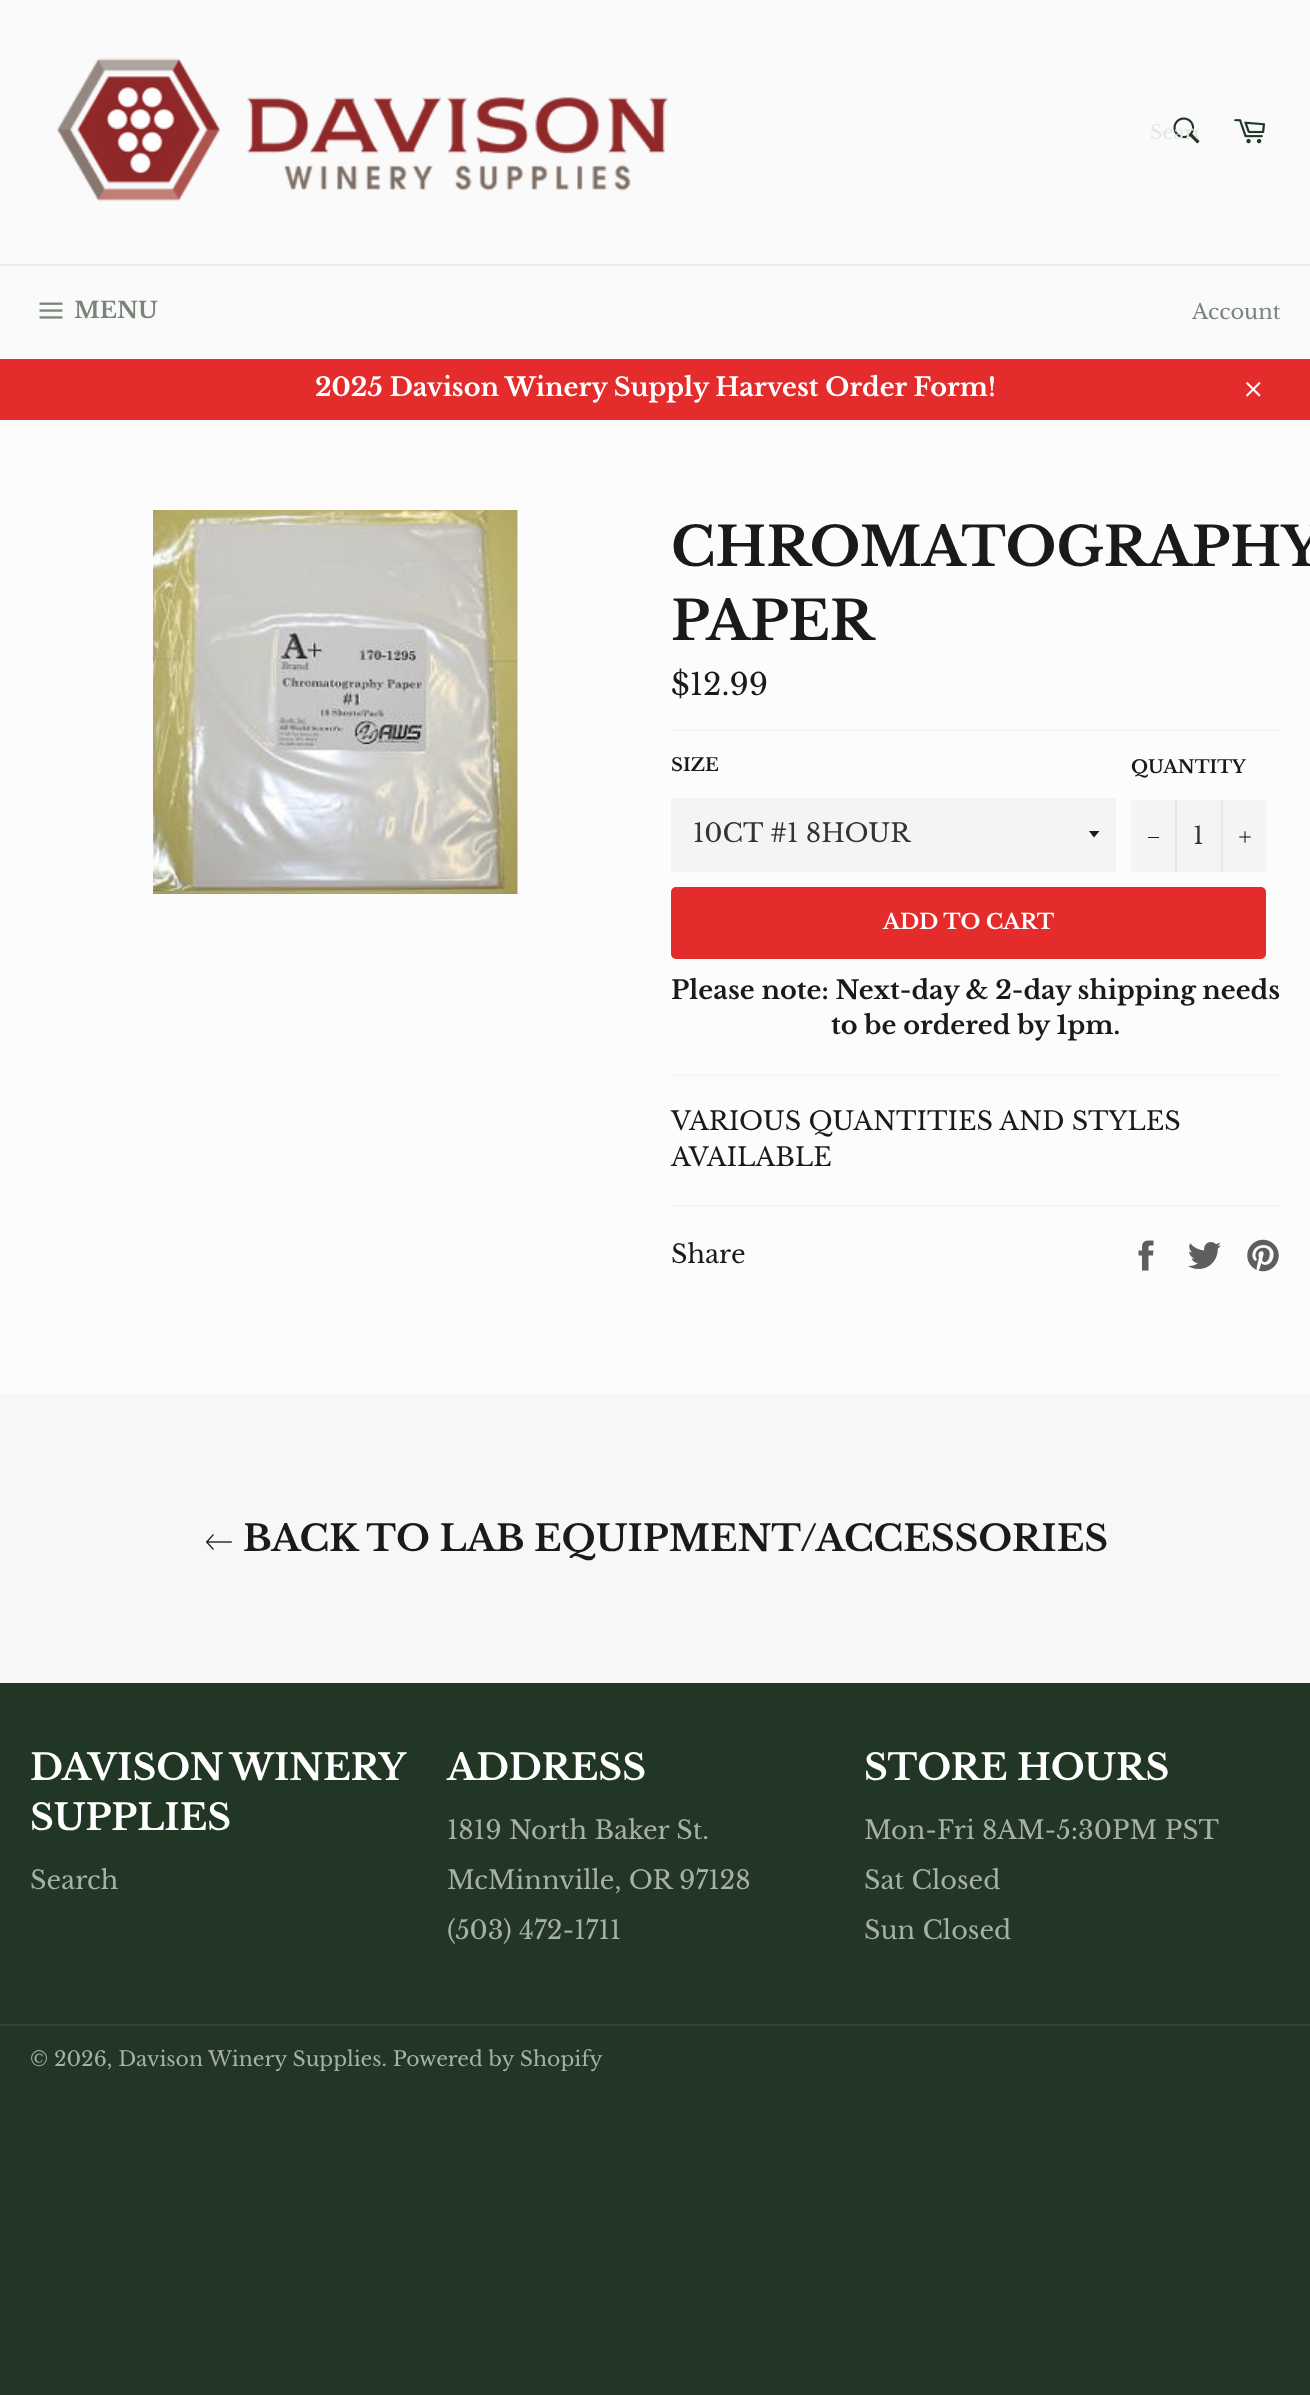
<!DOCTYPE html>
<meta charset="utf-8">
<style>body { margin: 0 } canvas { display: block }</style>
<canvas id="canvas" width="1310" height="2395"></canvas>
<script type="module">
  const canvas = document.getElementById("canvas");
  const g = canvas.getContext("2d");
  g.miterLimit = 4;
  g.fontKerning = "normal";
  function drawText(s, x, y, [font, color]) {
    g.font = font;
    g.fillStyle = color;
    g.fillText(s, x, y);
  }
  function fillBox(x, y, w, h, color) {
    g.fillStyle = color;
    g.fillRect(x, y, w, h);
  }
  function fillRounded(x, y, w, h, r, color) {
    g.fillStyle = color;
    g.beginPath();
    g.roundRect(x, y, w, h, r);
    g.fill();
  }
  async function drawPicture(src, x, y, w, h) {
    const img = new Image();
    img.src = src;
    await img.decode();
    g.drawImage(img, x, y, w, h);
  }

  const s1 = ["19.5px Libre Baskerville", "#E4E7E5"];
  const s2 = ["bold 22.5px Libre Baskerville", "#78847A"];
  const s3 = ["21px Libre Baskerville", "#78847A"];
  const s4 = ["bold 25.5px Libre Baskerville", "#FFFFFF"];
  const s5 = ["bold 54px Libre Baskerville", "#1A1A1A"];
  const s6 = ["30px Libre Baskerville", "#1A1A1A"];
  const s7 = ["bold 18px Libre Baskerville", "#1A1A1A"];
  const s8 = ["25.5px Libre Baskerville", "#333333"];
  const s9 = ["24px Libre Baskerville", "#333333"];
  const s10 = ["bold 21px Libre Baskerville", "#FFFFFF"];
  const s11 = ["bold 25.5px Libre Baskerville", "#1A1A1A"];
  const s12 = ["25.5px Libre Baskerville", "#1A1A1A"];
  const s13 = ["bold 36px Libre Baskerville", "#1A1A1A"];
  const s14 = ["bold 36px Libre Baskerville", "#FFFFFF"];
  const s15 = ["25.5px Libre Baskerville", "#A6AFA8"];
  const s16 = ["20.4px Libre Baskerville", "#A6AFA8"];

  fillBox(0, 0, 1310, 2395, "#213625");
  fillBox(0, 0, 1310, 264, "#FAFAFA");
  await drawPicture("pic1.png", 56, 58, 612, 144);
  await drawPicture("pic2.png", 1173, 117, 27, 27);
  g.save();
  g.beginPath();
  g.rect(1151, 120, 48, 26);
  g.clip();
  drawText("Searc", 1150, 139, s1);
  g.restore();
  await drawPicture("pic3.png", 1234, 119, 31, 25);
  fillBox(0, 266, 1310, 93, "#FAFAFA");
  fillBox(0, 264, 1310, 2, "#EDEDED");
  await drawPicture("pic4.png", 39, 302, 24, 17);
  drawText("MENU", 74, 318, s2);
  drawText("Account", 1192, 319, s3);
  fillBox(0, 359, 1310, 61, "#E32C2B");
  drawText("2025 Davison Winery Supply Harvest Order Form!", 315, 396, s4);
  await drawPicture("pic5.png", 1245, 381, 16, 16);
  fillBox(0, 420, 1310, 974, "#FCFCFC");
  await drawPicture("pic6.png", 153, 510, 365, 384);
  drawText("CHROMATOGRAPHY", 671, 566, s5);
  drawText("PAPER", 671, 640, s5);
  drawText("$12.99", 671, 695, s6);
  fillBox(671, 729, 610, 2, "#F7F7F7");
  drawText("SIZE", 671, 771, s7);
  fillBox(671, 798, 445, 74, "#F4F4F4");
  g.fillStyle = "#1A1A1A";
  g.beginPath();
  g.moveTo(1089, 831);
  g.lineTo(1094, 837.5);
  g.lineTo(1099.5, 831);
  g.closePath();
  g.fill();
  drawText("10CT #1 8HOUR", 693, 842, s8);
  drawText("QUANTITY", 1131, 773, s7);
  fillBox(1131, 800, 135, 72, "#F4F4F4");
  fillBox(1175, 800, 2, 72, "#E7E7E7");
  fillBox(1148, 837, 11, 1, "#1A1A1A");
  drawText("1", 1193, 844, s9);
  fillBox(1221, 800, 2, 72, "#E7E7E7");
  await drawPicture("pic7.png", 1239, 831, 12, 12);
  fillRounded(671, 887, 595, 72, 5, "#E32C2B");
  drawText("ADD TO CART", 883, 929, s10);
  drawText("Please note: Next-day & 2-day shipping needs", 671, 999, s11);
  drawText("to be ordered by 1pm.", 831, 1034, s11);
  fillBox(671, 1074, 610, 2, "#F7F7F7");
  drawText("VARIOUS QUANTITIES AND STYLES", 671, 1130, s12);
  drawText("AVAILABLE", 671, 1166, s12);
  fillBox(671, 1205, 610, 2, "#F7F7F7");
  drawText("Share", 671, 1263, s12);
  await drawPicture("pic8.png", 1138, 1240, 16, 31);
  await drawPicture("pic9.png", 1188, 1242, 33, 27);
  await drawPicture("pic10.png", 1247, 1239, 32, 33);
  fillBox(0, 1394, 1310, 289, "#F7F7F7");
  await drawPicture("pic11.png", 206, 1534, 26, 16);
  drawText("BACK TO LAB EQUIPMENT/ACCESSORIES", 243, 1551, s13);
  g.wordSpacing = "-2px";
  drawText("DAVISON WINERY", 30, 1780, s14);
  g.wordSpacing = "0px";
  drawText("SUPPLIES", 30, 1830, s14);
  drawText("Search", 30, 1889, s15);
  drawText("ADDRESS", 447, 1780, s14);
  drawText("1819 North Baker St.", 447, 1839, s15);
  drawText("McMinnville, OR 97128", 447, 1889, s15);
  drawText("(503) 472-1711", 447, 1939, s15);
  drawText("STORE HOURS", 864, 1780, s14);
  drawText("Mon-Fri 8AM-5:30PM PST", 864, 1839, s15);
  drawText("Sat Closed", 864, 1889, s15);
  drawText("Sun Closed", 864, 1939, s15);
  fillBox(0, 2024, 1310, 2, "#2B4630");
  drawText("© 2026, Davison Winery Supplies. Powered by Shopify", 30, 2066, s16);
</script>
